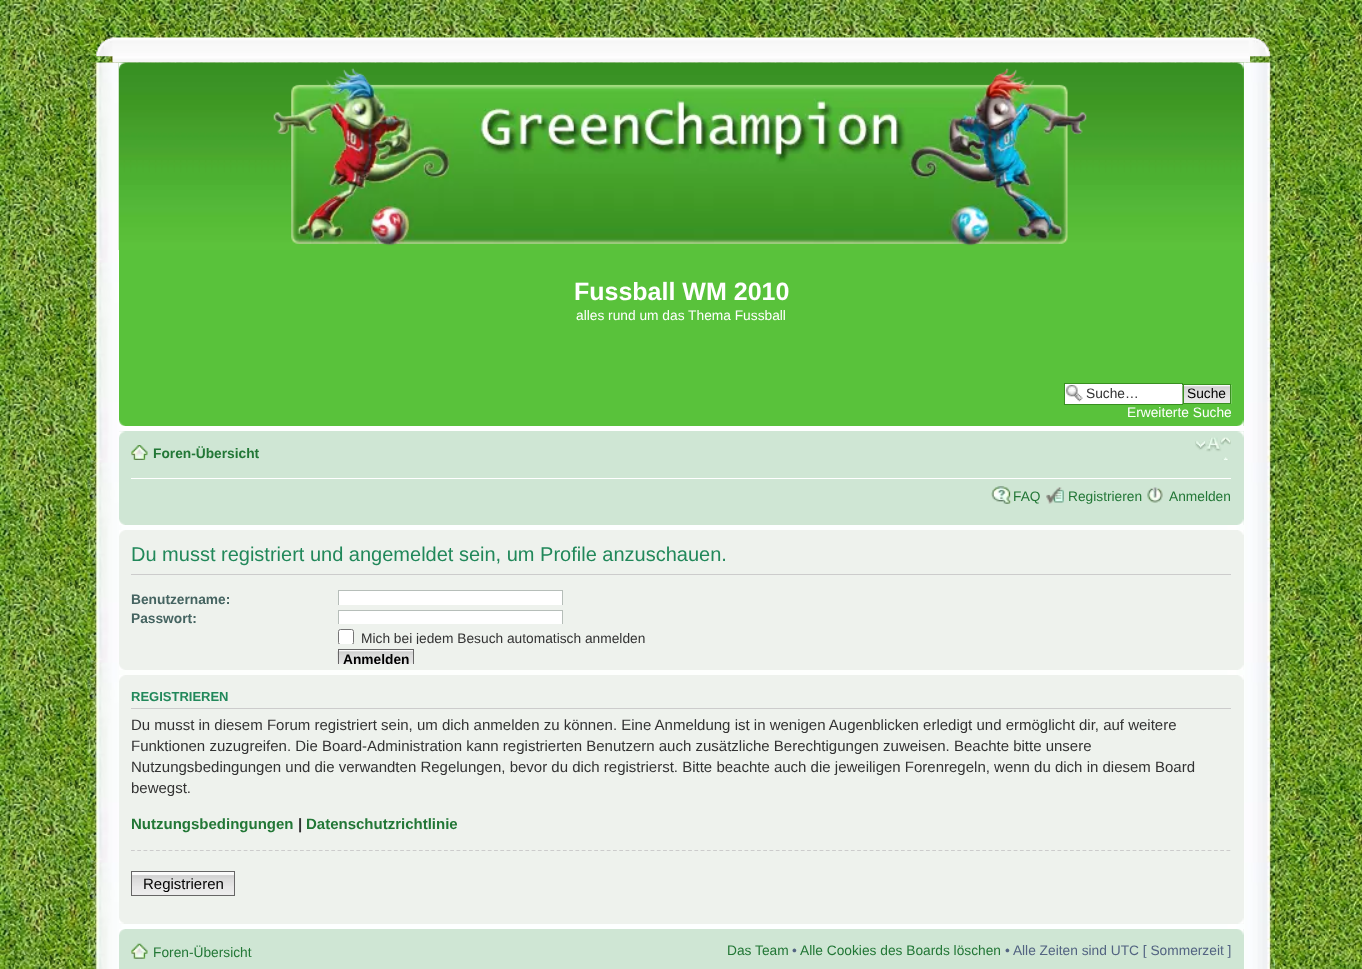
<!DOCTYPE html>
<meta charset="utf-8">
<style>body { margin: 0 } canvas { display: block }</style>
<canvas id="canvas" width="1362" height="969"></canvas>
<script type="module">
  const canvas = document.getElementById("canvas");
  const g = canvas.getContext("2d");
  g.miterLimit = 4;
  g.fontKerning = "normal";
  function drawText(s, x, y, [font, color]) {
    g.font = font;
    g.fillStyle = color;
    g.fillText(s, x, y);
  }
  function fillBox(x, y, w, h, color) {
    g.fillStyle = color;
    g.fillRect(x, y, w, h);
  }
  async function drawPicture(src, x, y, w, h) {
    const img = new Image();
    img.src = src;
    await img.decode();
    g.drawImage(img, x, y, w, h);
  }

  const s1 = ["bold 25px Liberation Sans", "#FFFFFF"];
  const s2 = ["13.75px Liberation Sans", "#FFFFFF"];
  const s3 = ["13.75px Liberation Sans", "#333333"];
  const s4 = ["13.75px Liberation Sans", "#000000"];
  const s5 = ["bold 13.75px Liberation Sans", "#227736"];
  const s6 = ["13.75px Liberation Sans", "#227736"];
  const s7 = ["20px Liberation Sans", "#21885A"];
  const s8 = ["bold 13.75px Liberation Sans", "#456461"];
  const s9 = ["bold 13.75px Liberation Sans", "#000000"];
  const s10 = ["bold 13px Liberation Sans", "#21885A"];
  const s11 = ["15px Liberation Sans", "#333333"];
  const s12 = ["bold 15px Liberation Sans", "#227736"];
  const s13 = ["bold 15px Liberation Sans", "#333333"];
  const s14 = ["15px Liberation Sans", "#000000"];
  const s15 = ["13.75px Liberation Sans", "#536482"];

  fillBox(0, 0, 1362, 969, "#FFFFFF");
  await drawPicture("pic1.png", 0, 0, 1362, 969);
  await drawPicture("pic2.png", 96, 37, 18, 20);
  await drawPicture("pic3.png", 112, 37, 1138, 26);
  await drawPicture("pic4.png", 1248, 37, 23, 20);
  await drawPicture("pic5.png", 87, 62, 1188, 907);
  fillBox(119, 63, 1125, 363, "#59C23B");
  await drawPicture("pic6.png", 118, 62, 1126, 188);
  await drawPicture("pic7.png", 118, 62, 8, 7);
  await drawPicture("pic8.png", 1237, 62, 7, 7);
  await drawPicture("pic9.png", 273, 68, 814, 178);
  drawText("Fussball WM 2010", 574, 300, s1);
  drawText("alles rund um das Thema Fussball", 576, 320, s2);
  fillBox(1065, 384, 117, 20, "#FFFFFF");
  await drawPicture("pic10.png", 1065, 385, 18, 17);
  g.strokeStyle = "#398F21";
  g.strokeRect(1064.5, 383.5, 118, 21);
  drawText("Suche…", 1086, 398, s3);
  await drawPicture("pic11.png", 1182, 385, 50, 19);
  g.strokeRect(1183.5, 384.5, 47, 19);
  drawText("Suche", 1187, 398, s4);
  drawText("Erweiterte Suche", 1127, 417, s2);
  await drawPicture("pic12.png", 119, 420, 7, 6);
  await drawPicture("pic13.png", 1237, 420, 7, 6);
  fillBox(119, 431, 1125, 94, "#CFE6D4");
  await drawPicture("pic14.png", 119, 431, 6, 7);
  await drawPicture("pic15.png", 1237, 431, 7, 7);
  fillBox(131, 478, 1100, 1, "#FFFFFF");
  await drawPicture("pic16.png", 131, 445, 17, 15);
  drawText("Foren-Übersicht", 153, 458, s5);
  await drawPicture("pic17.png", 1195, 437, 36, 23);
  await drawPicture("pic18.png", 991, 486, 21, 18);
  drawText("FAQ", 1013, 501, s6);
  await drawPicture("pic19.png", 1046, 487, 18, 17);
  drawText("Registrieren", 1068, 501, s6);
  await drawPicture("pic20.png", 1147, 487, 16, 16);
  drawText("Anmelden", 1169, 501, s6);
  await drawPicture("pic21.png", 119, 519, 6, 6);
  await drawPicture("pic22.png", 1237, 519, 7, 6);
  fillBox(119, 530, 1125, 140, "#EEF2ED");
  await drawPicture("pic23.png", 119, 530, 6, 6);
  await drawPicture("pic24.png", 1238, 530, 6, 5);
  fillBox(131, 574, 1100, 1, "#CCCCCC");
  drawText("Du musst registriert und angemeldet sein, um Profile anzuschauen.", 131, 561, s7);
  drawText("Benutzername:", 131, 604, s8);
  fillBox(339, 591, 223, 14, "#FFFFFF");
  g.save();
  g.beginPath();
  g.rect(131, 585, 1100, 20);
  g.clip();
  g.strokeStyle = "#B6BEB9";
  g.strokeRect(338.5, 590.5, 224, 22);
  g.restore();
  drawText("Passwort:", 131, 623, s8);
  fillBox(339, 611, 223, 13, "#FFFFFF");
  g.save();
  g.beginPath();
  g.rect(131, 605, 1100, 19);
  g.clip();
  g.strokeStyle = "#B6BEB9";
  g.strokeRect(338.5, 610.5, 224, 22);
  g.restore();
  g.save();
  g.beginPath();
  g.rect(131, 624, 1100, 20);
  g.clip();
  g.beginPath();
  g.roundRect(338.5, 629.5, 15, 15, 2);
  g.fill();
  g.strokeStyle = "#767676";
  g.stroke();
  drawText("Mich bei jedem Besuch automatisch anmelden", 361, 643, s3);
  g.restore();
  await drawPicture("pic25.png", 337, 650, 76, 14);
  g.save();
  g.beginPath();
  g.rect(131, 644, 1100, 20);
  g.clip();
  g.strokeStyle = "#666666";
  g.strokeRect(338.5, 649.5, 75, 19);
  g.restore();
  g.save();
  g.beginPath();
  g.rect(339, 650, 74, 14);
  g.clip();
  drawText("Anmelden", 343, 664, s9);
  g.restore();
  await drawPicture("pic26.png", 119, 664, 6, 6);
  await drawPicture("pic27.png", 1238, 665, 6, 5);
  fillBox(119, 675, 1125, 249, "#EEF2ED");
  await drawPicture("pic23.png", 119, 675, 6, 6);
  await drawPicture("pic24.png", 1238, 675, 6, 5);
  fillBox(131, 708, 1100, 1, "#CCCCCC");
  drawText("REGISTRIEREN", 131, 701, s10);
  drawText("Du musst in diesem Forum registriert sein, um dich anmelden zu können. Eine Anmeldung ist in wenigen Augenblicken erledigt und ermöglicht dir, auf weitere", 131, 730, s11);
  drawText("Funktionen zuzugreifen. Die Board-Administration kann registrierten Benutzern auch zusätzliche Berechtigungen zuweisen. Beachte bitte unsere", 131, 751, s11);
  drawText("Nutzungsbedingungen und die verwandten Regelungen, bevor du dich registrierst. Bitte beachte auch die jeweiligen Forenregeln, wenn du dich in diesem Board", 131, 772, s11);
  drawText("bewegst.", 131, 793, s11);
  drawText("Nutzungsbedingungen", 131, 829, s12);
  drawText("|", 298, 829, s13);
  drawText("Datenschutzrichtlinie", 306, 829, s12);
  g.beginPath();
  g.moveTo(131, 850.5);
  g.lineTo(1231, 850.5);
  g.strokeStyle = "#CCCCCC";
  g.lineWidth = 1.2;
  g.setLineDash([3.75, 2.51]);
  g.stroke();
  await drawPicture("pic28.png", 132, 875, 102, 20);
  fillBox(132, 872, 102, 3, "#FAFAFA");
  g.strokeStyle = "#666666";
  g.lineWidth = 1;
  g.setLineDash([]);
  g.strokeRect(131.5, 871.5, 103, 24);
  drawText("Registrieren", 143, 889, s14);
  await drawPicture("pic29.png", 119, 918, 5, 6);
  await drawPicture("pic30.png", 1238, 918, 6, 6);
  fillBox(119, 929, 1125, 40, "#CFE6D4");
  await drawPicture("pic31.png", 119, 929, 6, 6);
  await drawPicture("pic32.png", 1237, 929, 7, 6);
  await drawPicture("pic33.png", 131, 943, 17, 16);
  drawText("Foren-Übersicht", 153, 957, s6);
  drawText("Das Team", 727, 955, s6);
  drawText("•", 792, 955, s15);
  drawText("Alle Cookies des Boards löschen", 800, 955, s6);
  drawText("• Alle Zeiten sind UTC [ Sommerzeit ]", 1005, 955, s15);
</script>
